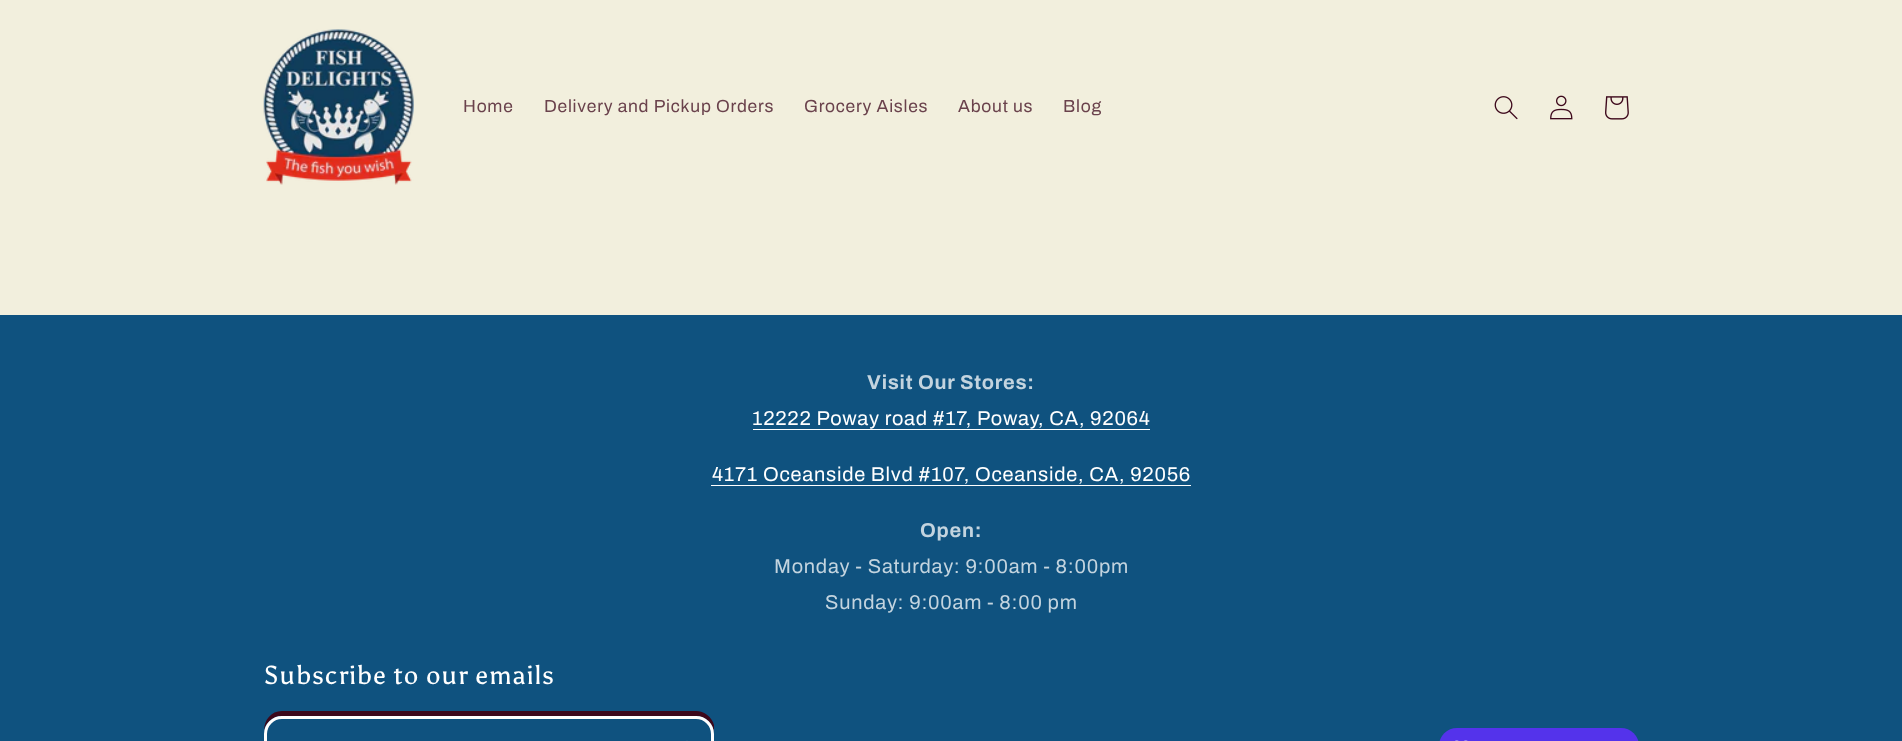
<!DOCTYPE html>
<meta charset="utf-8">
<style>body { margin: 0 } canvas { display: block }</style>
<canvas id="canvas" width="1902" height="741"></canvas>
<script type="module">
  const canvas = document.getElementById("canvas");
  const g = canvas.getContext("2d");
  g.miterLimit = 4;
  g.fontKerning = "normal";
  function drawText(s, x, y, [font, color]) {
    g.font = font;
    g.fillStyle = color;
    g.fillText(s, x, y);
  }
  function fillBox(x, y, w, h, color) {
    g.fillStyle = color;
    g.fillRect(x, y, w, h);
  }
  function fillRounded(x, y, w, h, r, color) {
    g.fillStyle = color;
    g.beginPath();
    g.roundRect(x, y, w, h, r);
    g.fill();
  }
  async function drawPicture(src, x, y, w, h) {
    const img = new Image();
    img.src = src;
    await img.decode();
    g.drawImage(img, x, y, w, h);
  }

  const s1 = ["17.5px Archivo", "#6A424C"];
  const s2 = ["bold 20px Archivo", "#C3D4DF"];
  const s3 = ["20px Archivo", "#FFFFFF"];
  const s4 = ["20px Archivo", "#C3D4DF"];
  const s5 = ["25.9px Asul", "#FFFFFF"];

  fillBox(0, 0, 1902, 741, "#F2EFDD");
  await drawPicture("pic1.png", 263, 29, 151, 156);
  g.letterSpacing = "0.75px";
  drawText("Home", 463, 112, s1);
  drawText("Delivery and Pickup Orders", 544, 112, s1);
  drawText("Grocery Aisles", 804, 112, s1);
  drawText("About us", 958, 112, s1);
  drawText("Blog", 1063, 112, s1);
  await drawPicture("pic2.png", 1494, 96, 24, 24);
  await drawPicture("pic3.png", 1550, 95, 23, 25);
  await drawPicture("pic4.png", 1605, 96, 24, 24);
  fillBox(0, 315, 1902, 426, "#0F527F");
  drawText("Visit Our Stores:", 867, 389, s2);
  drawText("12222 Poway road #17, Poway, CA, 92064", 752, 425, s3);
  fillBox(753, 429, 397, 1, "#FFFFFF");
  drawText("4171 Oceanside Blvd #107, Oceanside, CA, 92056", 712, 481, s3);
  fillBox(711, 485, 480, 1, "#FFFFFF");
  drawText("Open:", 920, 537, s2);
  drawText("Monday - Saturday: 9:00am - 8:00pm", 774, 573, s4);
  drawText("Sunday: 9:00am - 8:00 pm", 825, 609, s4);
  g.letterSpacing = "0.9px";
  drawText("Subscribe to our emails", 264, 684, s5);
  g.fillStyle = "#3D081B";
  g.beginPath();
  g.moveTo(282, 711);
  g.bezierCurveTo(271, 711, 264, 720, 264, 731);
  g.bezierCurveTo(265, 723, 273, 716, 281, 716);
  g.lineTo(696, 716);
  g.bezierCurveTo(706, 716, 714, 724, 714, 734);
  g.lineTo(714, 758);
  g.lineTo(714, 725);
  g.bezierCurveTo(712, 717, 704, 711, 696, 711);
  g.closePath();
  g.fill();
  g.beginPath();
  g.roundRect(265.5, 717.5, 447, 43, 16.5);
  g.strokeStyle = "#FFFFFF";
  g.lineWidth = 3;
  g.stroke();
  fillBox(686, 740, 2, 1, "#165783");
  fillRounded(1439, 728, 200, 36, 22.5, "#5433EB");
  await drawPicture("pic5.png", 1455, 740, 13, 1);
</script>
